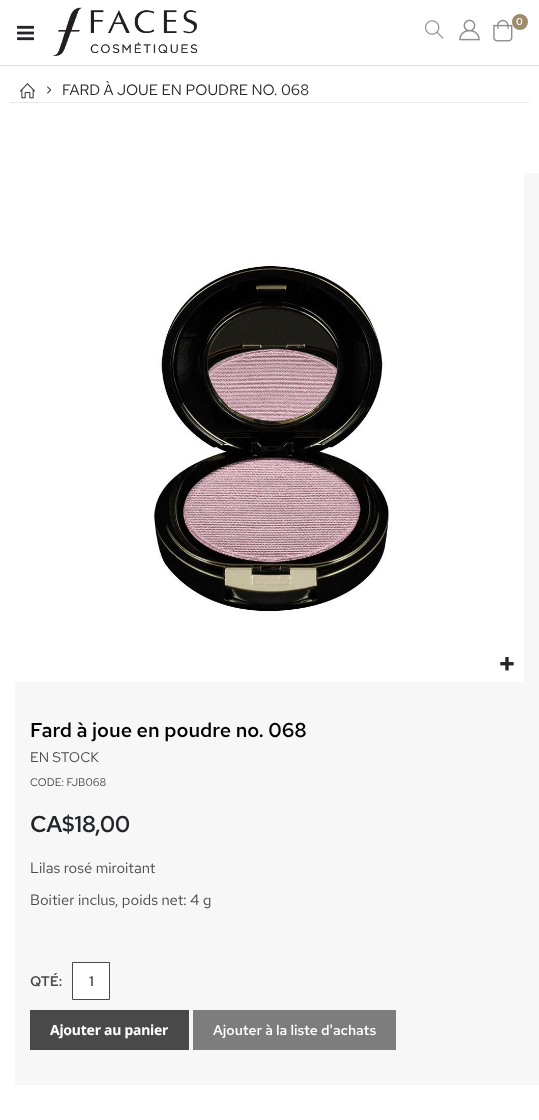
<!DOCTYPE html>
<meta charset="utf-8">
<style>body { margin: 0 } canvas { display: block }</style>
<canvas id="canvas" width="539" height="1120"></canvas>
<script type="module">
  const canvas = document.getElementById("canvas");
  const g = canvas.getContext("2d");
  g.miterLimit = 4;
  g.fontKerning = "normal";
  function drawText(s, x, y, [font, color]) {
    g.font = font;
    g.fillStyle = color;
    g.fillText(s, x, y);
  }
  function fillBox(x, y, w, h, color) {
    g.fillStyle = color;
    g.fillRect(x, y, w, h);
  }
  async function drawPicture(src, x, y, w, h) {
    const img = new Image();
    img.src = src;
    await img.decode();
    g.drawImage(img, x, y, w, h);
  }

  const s1 = ["500 10px Red Hat Text", "#FFFFFF"];
  const s2 = ["15px Red Hat Text", "#222529"];
  const s3 = ["500 20px Red Hat Text", "#000000"];
  const s4 = ["14px Red Hat Text", "#494949"];
  const s5 = ["11px Red Hat Text", "#494949"];
  const s6 = ["500 23px Red Hat Text", "#222529"];
  const s7 = ["14.9px Red Hat Text", "#494949"];
  const s8 = ["500 14px Red Hat Text", "#494949"];
  const s9 = ["bold 14px Noto Sans", "#FFFFFF"];
  const s10 = ["500 14px Red Hat Text", "#FFFFFF"];

  fillBox(0, 0, 539, 1120, "#FFFFFF");
  fillBox(0, 65, 539, 1, "#DDDDDD");
  await drawPicture("pic1.png", 17, 25, 17, 16);
  await drawPicture("pic2.png", 52, 7, 145, 49);
  await drawPicture("pic3.png", 425, 20, 19, 19);
  await drawPicture("pic4.png", 459, 19, 21, 22);
  await drawPicture("pic5.png", 493, 19, 20, 23);
  g.fillStyle = "#9D8D6C";
  g.beginPath();
  g.arc(520, 22, 8, 0, Math.PI * 2);
  g.fill();
  drawText("0", 516, 25, s1);
  await drawPicture("pic6.png", 20, 83, 15, 16);
  await drawPicture("pic7.png", 47, 86, 5, 8);
  drawText("FARD À JOUE EN POUDRE NO. 068", 62, 95, s2);
  fillBox(10, 102, 519, 1, "#E7E7E7");
  fillBox(15, 682, 509, 403, "#F7F7F7");
  await drawPicture("pic8.png", 154, 263, 236, 349);
  await drawPicture("pic9.png", 500, 657, 14, 14);
  fillBox(524, 173, 15, 912, "#F7F7F7");
  drawText("Fard à joue en poudre no. 068", 30, 737, s3);
  drawText("EN STOCK", 30, 762, s4);
  drawText("CODE: FJB068", 30, 786, s5);
  g.letterSpacing = "-0.5px";
  drawText("CA$18,00", 30, 832, s6);
  g.letterSpacing = "0px";
  drawText("Lilas rosé miroitant", 30, 873, s7);
  drawText("Boitier inclus, poids net: 4 g", 30, 905, s7);
  drawText("QTÉ:", 30, 986, s8);
  g.fillStyle = "#FFFFFF";
  g.beginPath();
  g.rect(72.5, 962.5, 37, 37);
  g.fill();
  g.strokeStyle = "#494949";
  g.stroke();
  drawText("1", 89, 986, s8);
  fillBox(30, 1010, 159, 40, "#494949");
  g.letterSpacing = "-0.25px";
  drawText("Ajouter au panier", 50, 1035, s9);
  fillBox(193, 1010, 203, 40, "#7D7D7D");
  g.letterSpacing = "0px";
  drawText("Ajouter à la liste d'achats", 213, 1035, s10);
</script>
